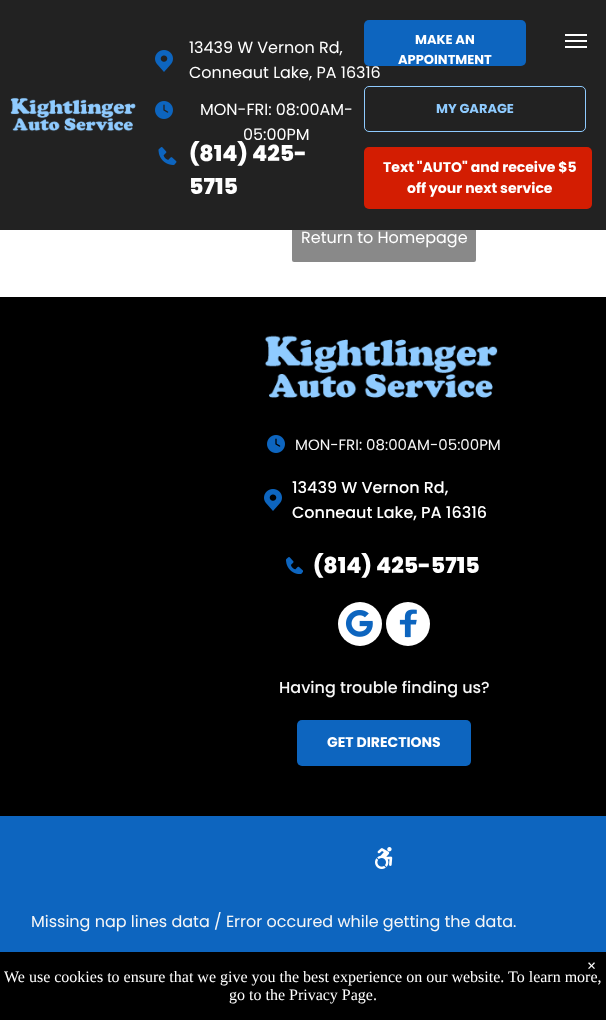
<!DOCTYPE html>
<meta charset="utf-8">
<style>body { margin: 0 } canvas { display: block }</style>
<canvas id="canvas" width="606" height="1020"></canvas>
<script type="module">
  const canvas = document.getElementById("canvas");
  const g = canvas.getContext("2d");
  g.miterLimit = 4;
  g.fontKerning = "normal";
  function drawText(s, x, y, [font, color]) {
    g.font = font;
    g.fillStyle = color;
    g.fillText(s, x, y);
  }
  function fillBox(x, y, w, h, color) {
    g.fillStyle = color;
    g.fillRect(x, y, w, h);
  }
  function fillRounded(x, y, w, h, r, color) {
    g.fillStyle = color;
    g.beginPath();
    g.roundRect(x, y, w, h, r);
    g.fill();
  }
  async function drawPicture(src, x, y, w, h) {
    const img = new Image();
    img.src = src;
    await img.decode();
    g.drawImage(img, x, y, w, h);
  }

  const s1 = ["16px Poppins", "#FFFFFF"];
  const s2 = ["800 22px Poppins", "#FFFFFF"];
  const s3 = ["bold 13px Poppins", "#FFFFFF"];
  const s4 = ["bold 13px Poppins", "#8FCBFF"];
  const s5 = ["bold 14px Poppins", "#FFFFFF"];
  const s6 = ["15px Poppins", "#F7F7F7"];
  const s7 = ["500 16px Poppins", "#FFFFFF"];
  const s8 = ["500 16px Poppins", "#F7F7F7"];
  const s9 = ["16px Poppins", "#F7F7F7"];
  const s10 = ["bold 16px Liberation Serif", "#FFFFFF"];
  const s11 = ["16px Liberation Serif", "#FFFFFF"];

  fillBox(0, 0, 606, 1020, "#FFFFFF");
  fillRounded(292, 225, 184, 37, 2, "#898989");
  fillBox(0, 0, 606, 230, "#222222");
  await drawPicture("pic1.png", 10, 97, 126, 35);
  await drawPicture("pic2.png", 155, 50, 18, 22);
  drawText("13439 W Vernon Rd,", 189, 53, s1);
  drawText("Conneaut Lake, PA 16316", 189, 78, s1);
  await drawPicture("pic3.png", 155, 101, 18, 18);
  drawText("MON-FRI: 08:00AM-", 200, 115, s1);
  drawText("05:00PM", 243, 140, s1);
  await drawPicture("pic4.png", 158, 147, 19, 18);
  drawText("(814) 425-", 189, 161, s2);
  drawText("5715", 189, 194, s2);
  fillRounded(364, 20, 162, 46, 5, "#0D65BF");
  drawText("MAKE AN", 415, 44, s3);
  drawText("APPOINTMENT", 398, 64, s3);
  g.beginPath();
  g.roundRect(364.5, 86.5, 221, 45, 4.5);
  g.strokeStyle = "#8FCBFF";
  g.stroke();
  drawText("MY GARAGE", 436, 113, s4);
  fillRounded(364, 147, 228, 62, 5, "#D31D02");
  drawText("Text \"AUTO\" and receive $5", 383, 172, s5);
  drawText("off your next service", 407, 193, s5);
  fillBox(565, 34, 22, 2, "#FFFFFF");
  fillBox(565, 40, 22, 2, "#FFFFFF");
  fillBox(565, 46, 22, 2, "#FFFFFF");
  drawText("Return to Homepage", 301, 243, s1);
  fillBox(0, 297, 606, 519, "#000000");
  await drawPicture("pic5.png", 264, 335, 234, 63);
  await drawPicture("pic6.png", 267, 435, 18, 18);
  drawText("MON-FRI: 08:00AM-05:00PM", 295, 450, s6);
  await drawPicture("pic7.png", 264, 489, 18, 22);
  drawText("13439 W Vernon Rd,", 292, 493, s7);
  drawText("Conneaut Lake, PA 16316", 292, 518, s7);
  await drawPicture("pic8.png", 286, 557, 17, 17);
  drawText("(814) 425-5715", 313, 573, s2);
  g.beginPath();
  g.arc(360, 624, 22, 0, Math.PI * 2);
  g.fill();
  await drawPicture("pic9.png", 345, 610, 28, 27);
  g.beginPath();
  g.arc(408, 624, 22, 0, Math.PI * 2);
  g.fill();
  await drawPicture("pic10.png", 399, 609, 18, 29);
  drawText("Having trouble finding us?", 279, 693, s8);
  fillRounded(297, 720, 174, 46, 5, "#0D65BF");
  drawText("GET DIRECTIONS", 327, 747, s5);
  fillBox(0, 816, 606, 136, "#0D65BF");
  await drawPicture("pic11.png", 375, 847, 18, 22);
  drawText("Missing nap lines data / Error occured while getting the data.", 31, 927, s9);
  fillBox(0, 952, 606, 68, "#000000");
  drawText("×", 587, 971, s10);
  drawText("We use cookies to ensure that we give you the best experience on our website. To learn more,", 4, 982, s11);
  drawText("go to the Privacy Page.", 229, 1000, s11);
</script>
